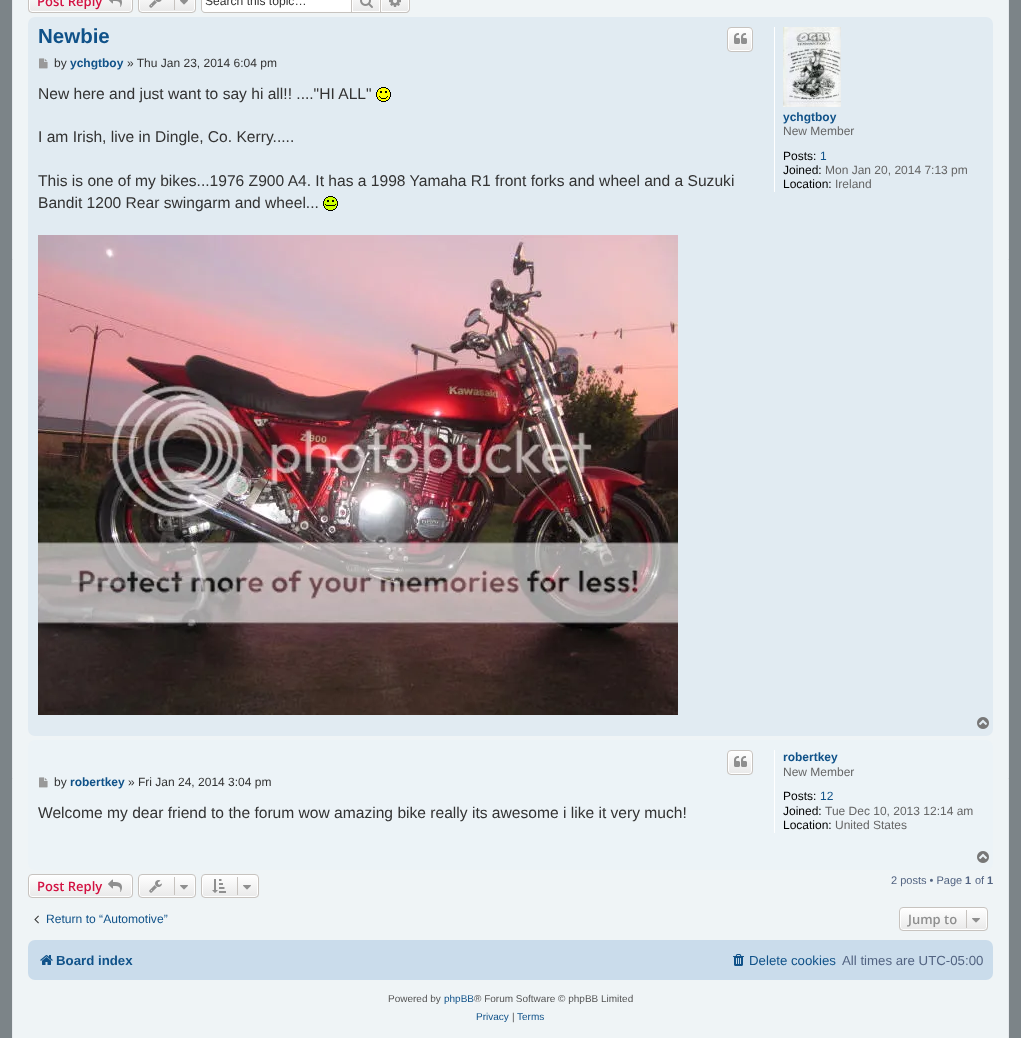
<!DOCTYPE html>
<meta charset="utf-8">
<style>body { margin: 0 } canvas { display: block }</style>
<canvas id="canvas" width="1021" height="1038"></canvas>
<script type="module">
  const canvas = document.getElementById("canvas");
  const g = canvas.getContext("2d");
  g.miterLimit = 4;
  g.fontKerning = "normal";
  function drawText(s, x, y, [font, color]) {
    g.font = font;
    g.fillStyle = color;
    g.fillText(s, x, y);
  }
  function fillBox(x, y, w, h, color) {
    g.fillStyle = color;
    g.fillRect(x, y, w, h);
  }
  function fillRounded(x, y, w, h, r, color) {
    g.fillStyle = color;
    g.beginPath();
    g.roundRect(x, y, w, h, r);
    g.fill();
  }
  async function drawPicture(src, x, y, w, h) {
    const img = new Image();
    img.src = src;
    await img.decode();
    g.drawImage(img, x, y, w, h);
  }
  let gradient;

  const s1 = ["600 13px Open Sans", "#D31141"];
  const s2 = ["12.1px Liberation Sans", "#333333"];
  const s3 = ["bold 20.5px Liberation Sans", "#105289"];
  const s4 = ["12px Liberation Sans", "#333333"];
  const s5 = ["bold 12px Liberation Sans", "#105289"];
  const s6 = ["15.6px Liberation Sans", "#333333"];
  const s7 = ["12px Liberation Sans", "#666666"];
  const s8 = ["12px Liberation Sans", "#000000"];
  const s9 = ["12px Liberation Sans", "#105289"];
  const s10 = ["11px Liberation Sans", "#536482"];
  const s11 = ["bold 11px Liberation Sans", "#536482"];
  const s12 = ["12.1px Liberation Sans", "#105289"];
  const s13 = ["600 13px Open Sans", "#8F8F8F"];
  const s14 = ["bold 13.25px Liberation Sans", "#105289"];
  const s15 = ["13.25px Liberation Sans", "#105289"];
  const s16 = ["13.25px Liberation Sans", "#536482"];
  const s17 = ["10px Liberation Sans", "#555555"];
  const s18 = ["10px Liberation Sans", "#105289"];

  fillBox(0, 0, 1021, 1038, "#7C8488");
  g.fillStyle = "#EFF4F6";
  g.beginPath();
  g.rect(12.5, -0.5, 996, 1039);
  g.fill();
  g.strokeStyle = "#E6E9ED";
  g.stroke();
  g.save();
  g.beginPath();
  g.roundRect(28, -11, 105, 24, 4);
  g.clip();
  gradient = g.createLinearGradient(81, -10, 81, 12);
  gradient.addColorStop(0, "#FFFFFF");
  gradient.addColorStop(1, "#E9E9E9");
  g.fillStyle = gradient;
  g.fillRect(28, 0, 105, 12);
  g.restore();
  g.beginPath();
  g.roundRect(29.5, -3.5, 102, 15, 2.5);
  g.strokeStyle = "#FFFFFF";
  g.stroke();
  g.beginPath();
  g.roundRect(28.5, -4.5, 104, 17, 3.5);
  g.strokeStyle = "#C7C3BF";
  g.stroke();
  drawText("Post Reply", 37, 6, s1);
  await drawPicture("pic1.png", 109, 0, 13, 7);
  g.save();
  g.beginPath();
  g.roundRect(138, -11, 58, 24, 4);
  g.clip();
  gradient = g.createLinearGradient(167, -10, 167, 12);
  gradient.addColorStop(0, "#FFFFFF");
  gradient.addColorStop(1, "#E9E9E9");
  g.fillStyle = gradient;
  g.fillRect(138, 0, 58, 12);
  g.restore();
  g.beginPath();
  g.roundRect(139.5, -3.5, 55, 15, 2.5);
  g.strokeStyle = "#FFFFFF";
  g.stroke();
  g.beginPath();
  g.roundRect(138.5, -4.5, 57, 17, 3.5);
  g.strokeStyle = "#C7C3BF";
  g.stroke();
  await drawPicture("pic2.png", 149, 0, 13, 8);
  fillBox(174, 0, 1, 10, "#C7C3BF");
  await drawPicture("pic3.png", 180, 0, 8, 5);
  g.fillStyle = "#FFFFFF";
  g.beginPath();
  g.moveTo(205, -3);
  g.lineTo(351, -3);
  g.lineTo(351, 12);
  g.lineTo(205, 12);
  g.bezierCurveTo(203.5, 12, 202, 10.5, 202, 9);
  g.lineTo(202, 0);
  g.bezierCurveTo(202, -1.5, 203.5, -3, 205, -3);
  g.closePath();
  g.fill();
  g.fillStyle = "#C7C3BF";
  g.beginPath();
  g.moveTo(205, -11);
  g.lineTo(351, -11);
  g.lineTo(351, 13);
  g.lineTo(205, 13);
  g.bezierCurveTo(203, 13, 201, 11, 201, 9);
  g.lineTo(201, -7);
  g.bezierCurveTo(201, -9, 203, -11, 205, -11);
  g.closePath();
  g.moveTo(205, -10);
  g.lineTo(351, -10);
  g.lineTo(351, 12);
  g.lineTo(205, 12);
  g.bezierCurveTo(203, 12, 202, 11, 202, 9);
  g.lineTo(202, -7);
  g.bezierCurveTo(202, -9, 203, -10, 205, -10);
  g.closePath();
  g.fill("evenodd");
  drawText("Search this topic…", 205, 5, s2);
  gradient = g.createLinearGradient(366, -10, 366, 12);
  gradient.addColorStop(0, "#FFFFFF");
  gradient.addColorStop(1, "#E9E9E9");
  g.fillStyle = gradient;
  g.fillRect(353, 0, 26, 11);
  g.strokeStyle = "#FFFFFF";
  g.strokeRect(352.5, -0.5, 27, 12);
  g.strokeStyle = "#C7C3BF";
  g.strokeRect(351.5, -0.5, 29, 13);
  await drawPicture("pic4.png", 360, 0, 13, 8);
  gradient = g.createLinearGradient(395, -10, 395, 12);
  gradient.addColorStop(0, "#FFFFFF");
  gradient.addColorStop(1, "#E9E9E9");
  g.fillStyle = gradient;
  g.beginPath();
  g.moveTo(381, -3);
  g.lineTo(406, -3);
  g.bezierCurveTo(407.5, -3, 409, -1.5, 409, 0);
  g.lineTo(409, 9);
  g.bezierCurveTo(409, 10.5, 407.5, 12, 406, 12);
  g.lineTo(381, 12);
  g.closePath();
  g.fill();
  g.beginPath();
  g.moveTo(381.5, -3.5);
  g.lineTo(406, -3.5);
  g.bezierCurveTo(407.5, -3.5, 408.5, -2.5, 408.5, -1);
  g.lineTo(408.5, 9);
  g.bezierCurveTo(408.5, 10.5, 407.5, 11.5, 406, 11.5);
  g.lineTo(381.5, 11.5);
  g.closePath();
  g.strokeStyle = "#FFFFFF";
  g.stroke();
  g.fillStyle = "#C7C3BF";
  g.beginPath();
  g.moveTo(381, -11);
  g.lineTo(406, -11);
  g.bezierCurveTo(408, -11, 410, -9, 410, -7);
  g.lineTo(410, 9);
  g.bezierCurveTo(410, 11, 408, 13, 406, 13);
  g.lineTo(381, 13);
  g.closePath();
  g.moveTo(381, -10);
  g.lineTo(406, -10);
  g.bezierCurveTo(407.5, -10, 409, -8.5, 409, -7);
  g.lineTo(409, 9);
  g.bezierCurveTo(409, 10.5, 407.5, 12, 406, 12);
  g.lineTo(381, 12);
  g.closePath();
  g.fill("evenodd");
  await drawPicture("pic5.png", 389, 0, 12, 7);
  fillRounded(28, 17, 965, 719, 7, "#E1EBF2");
  drawText("Newbie", 38, 43, s3);
  g.save();
  g.beginPath();
  g.roundRect(727, 27, 26, 25, 4);
  g.clip();
  gradient = g.createLinearGradient(740, 28, 740, 51);
  gradient.addColorStop(0, "#FFFFFF");
  gradient.addColorStop(1, "#E9E9E9");
  g.fillStyle = gradient;
  g.fillRect(727, 28, 26, 23);
  g.restore();
  g.beginPath();
  g.roundRect(728.5, 28.5, 23, 22, 2.5);
  g.stroke();
  g.beginPath();
  g.roundRect(727.5, 27.5, 25, 24, 3.5);
  g.strokeStyle = "#C7C3BF";
  g.stroke();
  await drawPicture("pic6.png", 734, 33, 13, 11);
  await drawPicture("pic7.png", 39, 58, 9, 11);
  drawText("by", 54, 67, s4);
  drawText("ychgtboy", 70, 67, s5);
  drawText("» Thu Jan 23, 2014 6:04 pm", 127, 67, s4);
  drawText("New here and just want to say hi all!! ....\"HI ALL\"", 38, 99, s6);
  await drawPicture("pic8.png", 376, 87, 15, 15);
  drawText("I am Irish, live in Dingle, Co. Kerry.....", 38, 142, s6);
  drawText("This is one of my bikes...1976 Z900 A4. It has a 1998 Yamaha R1 front forks and wheel and a Suzuki", 38, 186, s6);
  drawText("Bandit 1200 Rear swingarm and wheel...", 38, 208, s6);
  await drawPicture("pic9.png", 323, 196, 15, 15);
  await drawPicture("pic10.png", 38, 235, 640, 480);
  fillBox(774, 27, 1, 165, "#FFFFFF");
  await drawPicture("pic11.png", 783, 27, 58, 80);
  drawText("ychgtboy", 783, 121, s5);
  drawText("New Member", 783, 135, s7);
  drawText("Posts:", 783, 160, s8);
  drawText("1", 820, 160, s9);
  drawText("Joined:", 783, 174, s8);
  drawText("Mon Jan 20, 2014 7:13 pm", 825, 174, s7);
  drawText("Location:", 783, 188, s8);
  drawText("Ireland", 835, 188, s7);
  await drawPicture("pic12.png", 977, 717, 12, 12);
  fillRounded(28, 740, 965, 130, 7, "#ECF3F7");
  g.save();
  g.beginPath();
  g.roundRect(727, 750, 26, 25, 4);
  g.clip();
  gradient = g.createLinearGradient(740, 751, 740, 774);
  gradient.addColorStop(0, "#FFFFFF");
  gradient.addColorStop(1, "#E9E9E9");
  g.fillStyle = gradient;
  g.fillRect(727, 751, 26, 23);
  g.restore();
  g.beginPath();
  g.roundRect(728.5, 751.5, 23, 22, 2.5);
  g.strokeStyle = "#FFFFFF";
  g.stroke();
  g.beginPath();
  g.roundRect(727.5, 750.5, 25, 24, 3.5);
  g.strokeStyle = "#C7C3BF";
  g.stroke();
  await drawPicture("pic6.png", 734, 756, 13, 11);
  await drawPicture("pic13.png", 39, 777, 9, 11);
  drawText("by", 54, 786, s4);
  drawText("robertkey", 70, 786, s5);
  drawText("» Fri Jan 24, 2014 3:04 pm", 128, 786, s4);
  drawText("Welcome my dear friend to the forum wow amazing bike really its awesome i like it very much!", 38, 818, s6);
  fillBox(774, 750, 1, 83, "#FFFFFF");
  drawText("robertkey", 783, 761, s5);
  drawText("New Member", 783, 776, s7);
  drawText("Posts:", 783, 800, s8);
  drawText("12", 820, 800, s9);
  drawText("Joined:", 783, 815, s8);
  drawText("Tue Dec 10, 2013 12:14 am", 825, 815, s7);
  drawText("Location:", 783, 829, s8);
  drawText("United States", 835, 829, s7);
  await drawPicture("pic14.png", 977, 851, 12, 12);
  g.save();
  g.beginPath();
  g.roundRect(28, 874, 105, 24, 4);
  g.clip();
  gradient = g.createLinearGradient(81, 875, 81, 897);
  gradient.addColorStop(0, "#FFFFFF");
  gradient.addColorStop(1, "#E9E9E9");
  g.fillStyle = gradient;
  g.fillRect(28, 875, 105, 22);
  g.restore();
  g.beginPath();
  g.roundRect(29.5, 875.5, 102, 21, 2.5);
  g.strokeStyle = "#FFFFFF";
  g.stroke();
  g.beginPath();
  g.roundRect(28.5, 874.5, 104, 23, 3.5);
  g.strokeStyle = "#C7C3BF";
  g.stroke();
  drawText("Post Reply", 37, 891, s1);
  await drawPicture("pic15.png", 108, 879, 14, 13);
  g.save();
  g.beginPath();
  g.roundRect(138, 874, 58, 24, 4);
  g.clip();
  gradient = g.createLinearGradient(167, 875, 167, 897);
  gradient.addColorStop(0, "#FFFFFF");
  gradient.addColorStop(1, "#E9E9E9");
  g.fillStyle = gradient;
  g.fillRect(138, 875, 58, 22);
  g.restore();
  g.beginPath();
  g.roundRect(139.5, 875.5, 55, 21, 2.5);
  g.strokeStyle = "#FFFFFF";
  g.stroke();
  g.beginPath();
  g.roundRect(138.5, 874.5, 57, 23, 3.5);
  g.strokeStyle = "#C7C3BF";
  g.stroke();
  await drawPicture("pic16.png", 149, 880, 13, 13);
  fillBox(174, 877, 1, 18, "#C7C3BF");
  await drawPicture("pic3.png", 180, 885, 8, 5);
  g.save();
  g.beginPath();
  g.roundRect(201, 874, 58, 24, 4);
  g.clip();
  gradient = g.createLinearGradient(230, 875, 230, 897);
  gradient.addColorStop(0, "#FFFFFF");
  gradient.addColorStop(1, "#E9E9E9");
  g.fillStyle = gradient;
  g.fillRect(201, 875, 58, 22);
  g.restore();
  g.beginPath();
  g.roundRect(202.5, 875.5, 55, 21, 2.5);
  g.strokeStyle = "#FFFFFF";
  g.stroke();
  g.beginPath();
  g.roundRect(201.5, 874.5, 57, 23, 3.5);
  g.strokeStyle = "#C7C3BF";
  g.stroke();
  await drawPicture("pic17.png", 212, 879, 14, 14);
  fillBox(237, 877, 1, 18, "#C7C3BF");
  await drawPicture("pic3.png", 243, 885, 8, 5);
  drawText("2 posts • Page", 891, 884, s10);
  drawText("1", 965, 884, s11);
  drawText("of", 975, 884, s10);
  drawText("1", 987, 884, s11);
  await drawPicture("pic18.png", 34, 915, 5, 9);
  drawText("Return to “Automotive”", 46, 923, s12);
  g.save();
  g.beginPath();
  g.roundRect(899, 907, 89, 24, 4);
  g.clip();
  gradient = g.createLinearGradient(944, 908, 944, 930);
  gradient.addColorStop(0, "#FFFFFF");
  gradient.addColorStop(1, "#E9E9E9");
  g.fillStyle = gradient;
  g.fillRect(899, 908, 89, 22);
  g.restore();
  g.beginPath();
  g.roundRect(900.5, 908.5, 86, 21, 2.5);
  g.strokeStyle = "#FFFFFF";
  g.stroke();
  g.beginPath();
  g.roundRect(899.5, 907.5, 88, 23, 3.5);
  g.strokeStyle = "#C7C3BF";
  g.stroke();
  drawText("Jump to", 908, 924, s13);
  fillBox(966, 910, 1, 18, "#C7C3BF");
  await drawPicture("pic3.png", 972, 918, 8, 5);
  fillRounded(28, 940, 965, 40, 7, "#CADCEB");
  await drawPicture("pic19.png", 40, 955, 13, 10);
  drawText("Board index", 56, 965, s14);
  await drawPicture("pic20.png", 733, 954, 11, 12);
  drawText("Delete cookies", 749, 965, s15);
  drawText("All times are UTC-05:00", 842, 965, s16);
  drawText("Powered by", 388, 1002, s17);
  drawText("phpBB", 444, 1002, s18);
  drawText("® Forum Software © phpBB Limited", 474, 1002, s17);
  drawText("Privacy", 476, 1020, s18);
  drawText("|", 512, 1020, s17);
  drawText("Terms", 517, 1020, s18);
</script>
